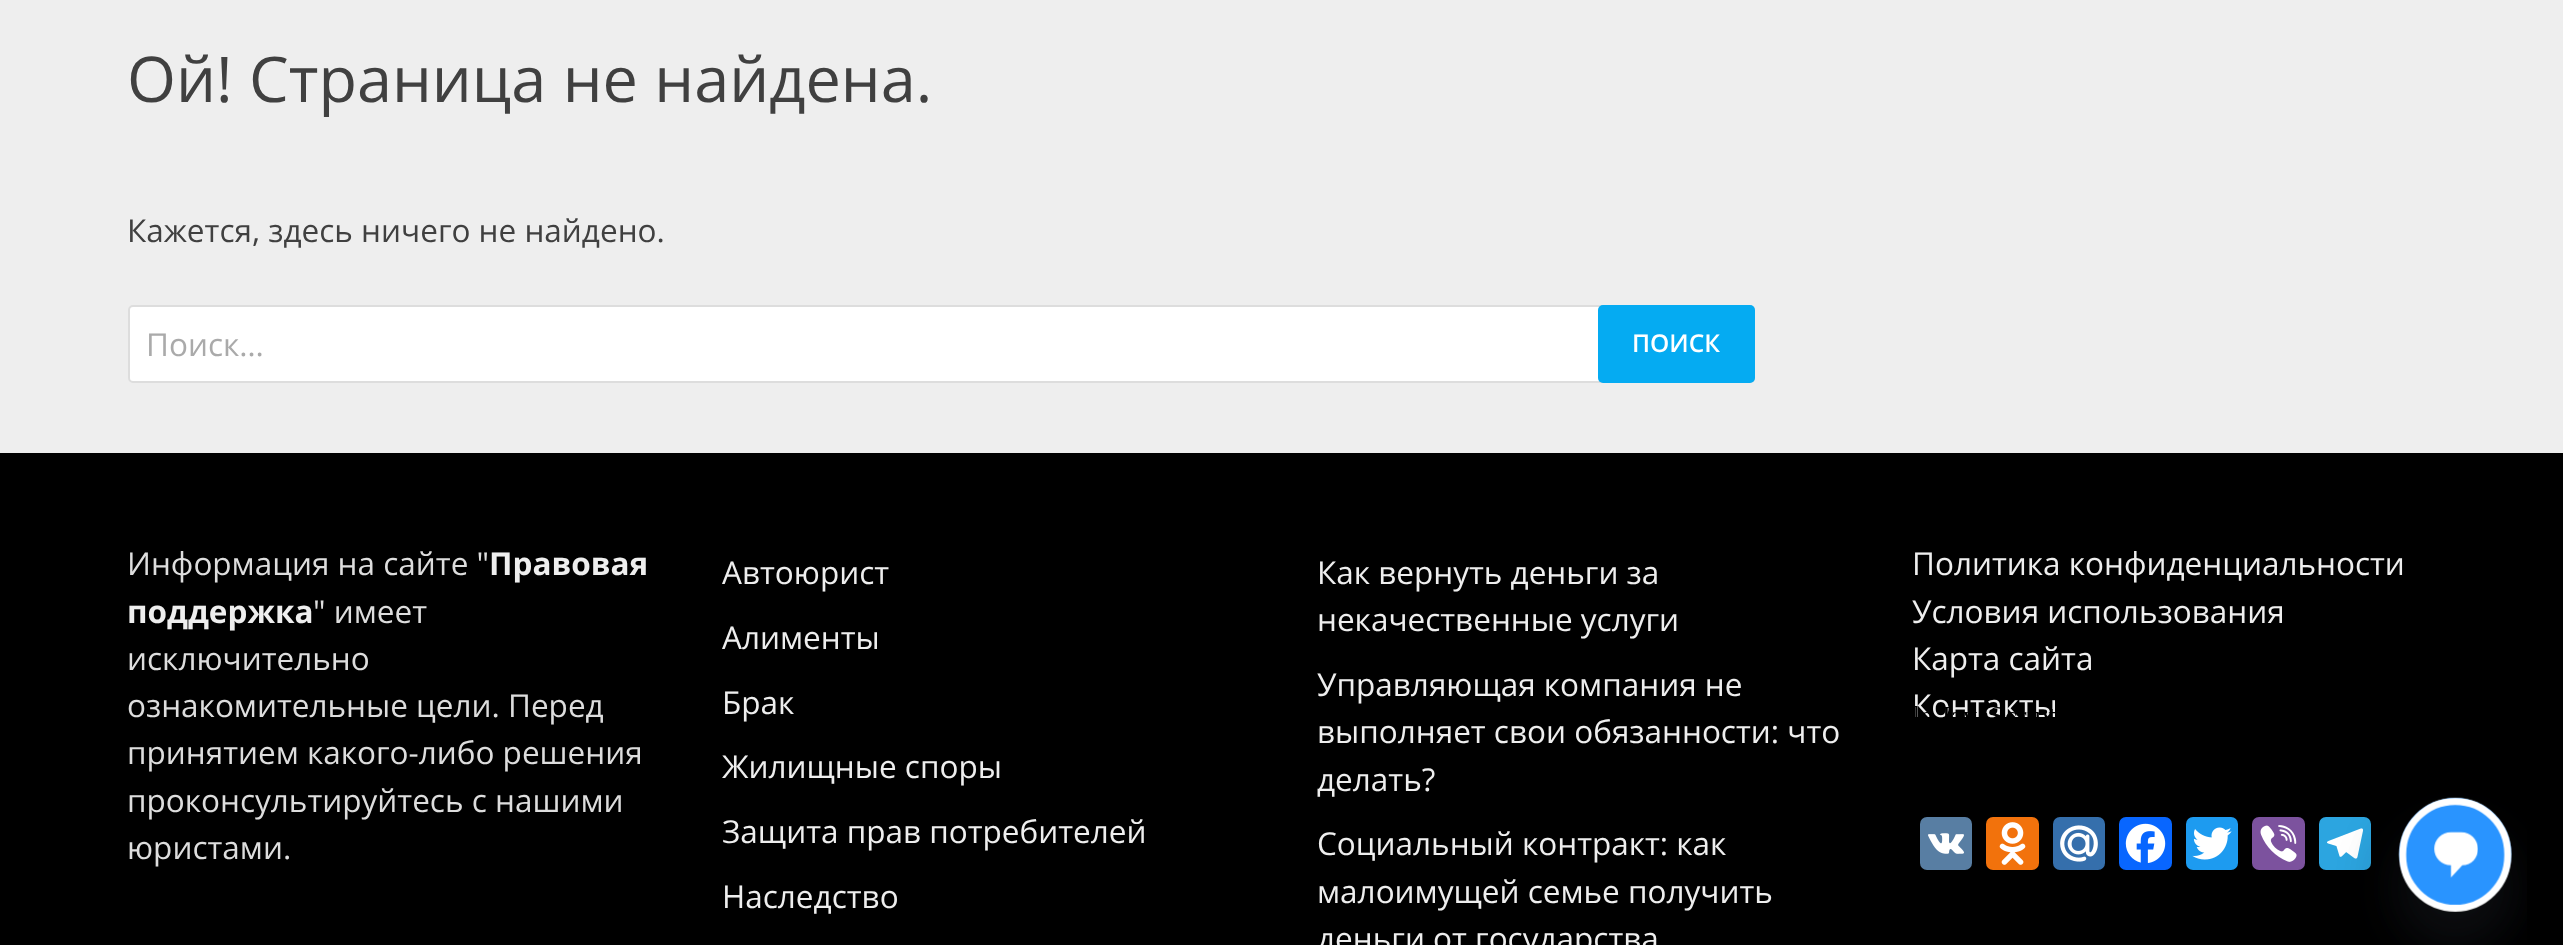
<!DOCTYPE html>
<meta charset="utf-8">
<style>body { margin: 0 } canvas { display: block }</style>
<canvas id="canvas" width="2563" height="945"></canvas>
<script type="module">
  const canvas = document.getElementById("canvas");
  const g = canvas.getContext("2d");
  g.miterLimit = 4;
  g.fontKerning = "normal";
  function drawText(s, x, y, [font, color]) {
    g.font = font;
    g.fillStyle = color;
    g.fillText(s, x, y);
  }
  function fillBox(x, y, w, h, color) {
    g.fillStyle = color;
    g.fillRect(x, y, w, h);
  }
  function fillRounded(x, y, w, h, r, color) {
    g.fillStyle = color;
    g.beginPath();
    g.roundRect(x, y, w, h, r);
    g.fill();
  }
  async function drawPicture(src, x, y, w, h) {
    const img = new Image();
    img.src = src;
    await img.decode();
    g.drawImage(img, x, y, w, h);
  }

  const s1 = ["63px Open Sans", "#404040"];
  const s2 = ["31.5px Open Sans", "#404040"];
  const s3 = ["31.5px Open Sans", "#AAAAAA"];
  const s4 = ["600 24.5px Open Sans", "#FFFFFF"];
  const s5 = ["31.5px Open Sans", "#DDDDDD"];
  const s6 = ["bold 31.5px Open Sans", "#EEEEEE"];
  const s7 = ["31.5px Open Sans", "#EEEEEE"];

  fillBox(0, 0, 2563, 945, "#EEEEEE");
  drawText("Ой! Страница не найдена.", 127, 102, s1);
  drawText("Кажется, здесь ничего не найдено.", 127, 242, s2);
  g.fillStyle = "#FFFFFF";
  g.beginPath();
  g.roundRect(129, 306, 1625, 76, 4);
  g.fill();
  g.strokeStyle = "#DDDDDD";
  g.lineWidth = 2;
  g.stroke();
  drawText("Поиск…", 146, 356, s3);
  fillRounded(1598, 305, 157, 78, 5, "#05ABF2");
  drawText("ПОИСК", 1632, 352, s4);
  fillBox(0, 453, 2563, 492, "#000000");
  drawText("Информация на сайте \"", 127, 575, s5);
  drawText("Правовая", 489, 575, s6);
  drawText("поддержка", 127, 623, s6);
  drawText("\" имеет", 313, 623, s5);
  drawText("исключительно", 127, 670, s5);
  drawText("ознакомительные цели. Перед", 127, 717, s5);
  drawText("принятием какого-либо решения", 127, 764, s5);
  drawText("проконсультируйтесь с нашими", 127, 812, s5);
  drawText("юристами.", 127, 859, s5);
  drawText("Автоюрист", 722, 584, s7);
  drawText("Алименты", 722, 649, s7);
  drawText("Брак", 722, 714, s7);
  drawText("Жилищные споры", 722, 778, s7);
  drawText("Защита прав потребителей", 722, 843, s7);
  drawText("Наследство", 722, 908, s7);
  drawText("Как вернуть деньги за", 1317, 584, s7);
  drawText("некачественные услуги", 1317, 631, s7);
  drawText("Управляющая компания не", 1317, 696, s7);
  drawText("выполняет свои обязанности: что", 1317, 743, s7);
  drawText("делать?", 1317, 791, s7);
  drawText("Социальный контракт: как", 1317, 855, s7);
  drawText("малоимущей семье получить", 1317, 903, s7);
  drawText("деньги от государства", 1317, 950, s7);
  drawText("Политика конфиденциальности", 1912, 575, s7);
  drawText("Условия использования", 1912, 623, s7);
  drawText("Карта сайта", 1912, 670, s7);
  drawText("Контакты", 1912, 717, s7);
  fillRounded(1920, 817, 52, 53, 7, "#587EA3");
  await drawPicture("pic1.png", 1928, 833, 36, 21);
  fillRounded(1986, 817, 53, 53, 7, "#F2720C");
  await drawPicture("pic2.png", 1999, 822, 27, 43);
  fillRounded(2053, 817, 52, 53, 7, "#356FAC");
  await drawPicture("pic3.png", 2060, 825, 38, 37);
  fillRounded(2119, 817, 53, 53, 7, "#0866FF");
  await drawPicture("pic4.png", 2125, 823, 41, 40);
  fillRounded(2186, 817, 52, 53, 7, "#1D9BF0");
  await drawPicture("pic5.png", 2192, 827, 40, 33);
  fillRounded(2252, 817, 53, 53, 7, "#7C529E");
  await drawPicture("pic6.png", 2260, 825, 37, 37);
  fillRounded(2319, 817, 52, 53, 7, "#2CA5E0");
  await drawPicture("pic7.png", 2327, 828, 36, 31);
  await drawPicture("pic8.png", 1914, 706, 613, 239);
</script>
